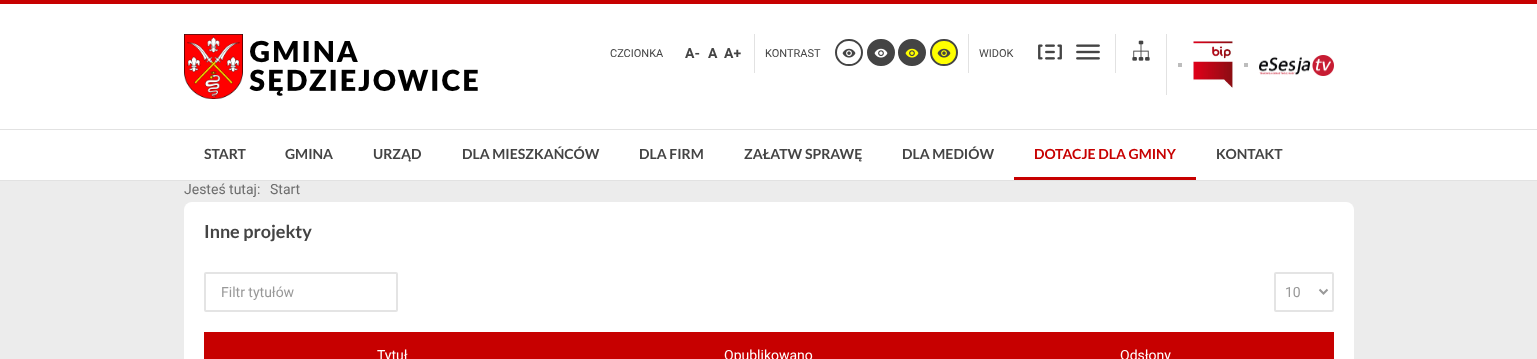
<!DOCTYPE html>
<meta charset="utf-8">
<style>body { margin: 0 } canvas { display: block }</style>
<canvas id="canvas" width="1537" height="359"></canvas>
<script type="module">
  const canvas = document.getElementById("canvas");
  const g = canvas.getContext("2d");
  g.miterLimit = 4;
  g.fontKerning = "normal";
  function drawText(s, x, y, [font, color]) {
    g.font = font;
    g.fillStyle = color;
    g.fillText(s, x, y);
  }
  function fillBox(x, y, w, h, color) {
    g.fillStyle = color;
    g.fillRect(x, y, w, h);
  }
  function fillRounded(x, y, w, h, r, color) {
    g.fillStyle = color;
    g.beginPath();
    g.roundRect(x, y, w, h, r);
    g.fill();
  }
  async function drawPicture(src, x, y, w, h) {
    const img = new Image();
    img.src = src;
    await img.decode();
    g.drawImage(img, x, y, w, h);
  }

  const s1 = ["11px Roboto", "#444444"];
  const s2 = ["bold 14px Roboto", "#444444"];
  const s3 = ["bold 14px Lato", "#444444"];
  const s4 = ["bold 14px Lato", "#C70000"];
  const s5 = ["14px Roboto", "#6D6D6D"];
  const s6 = ["bold 18px Lato", "#444444"];
  const s7 = ["14px Roboto", "#999999"];
  const s8 = ["14px Roboto", "#FFFFFF"];

  fillBox(0, 0, 1537, 359, "#ECECEC");
  fillBox(0, 180, 1537, 1, "#E2E2E2");
  fillBox(0, 0, 1537, 4, "#C70000");
  fillBox(0, 4, 1537, 125, "#FFFFFF");
  await drawPicture("pic1.png", 184, 34, 294, 65);
  drawText("CZCIONKA", 610, 57, s1);
  drawText("A-", 685, 58, s2);
  drawText("A", 708, 58, s2);
  drawText("A+", 724, 58, s2);
  fillBox(754, 34, 1, 39, "#E2E2E2");
  drawText("KONTRAST", 765, 57, s1);
  g.beginPath();
  g.roundRect(836, 40, 26, 25, 12.5);
  g.strokeStyle = "#444444";
  g.lineWidth = 2;
  g.stroke();
  await drawPicture("pic2.png", 842, 48, 14, 10);
  g.beginPath();
  g.roundRect(868, 40, 26, 25, 12.5);
  g.fill();
  g.stroke();
  await drawPicture("pic3.png", 874, 48, 14, 10);
  g.beginPath();
  g.roundRect(899, 40, 26, 25, 12.5);
  g.fill();
  g.stroke();
  await drawPicture("pic4.png", 905, 48, 14, 10);
  g.fillStyle = "#FFFF00";
  g.beginPath();
  g.roundRect(931, 40, 26, 25, 12.5);
  g.fill();
  g.stroke();
  await drawPicture("pic5.png", 937, 48, 14, 10);
  fillBox(968, 34, 1, 39, "#E2E2E2");
  drawText("WIDOK", 979, 57, s1);
  await drawPicture("pic6.png", 1038, 44, 24, 16);
  await drawPicture("pic7.png", 1076, 44, 24, 16);
  fillBox(1115, 34, 1, 39, "#E2E2E2");
  await drawPicture("pic8.png", 1132, 40, 18, 21);
  fillBox(1166, 34, 1, 61, "#E2E2E2");
  fillBox(1178, 63, 4, 4, "#BDBDBD");
  await drawPicture("pic9.png", 1193, 41, 40, 47);
  fillBox(1244, 63, 4, 4, "#BDBDBD");
  await drawPicture("pic10.png", 1259, 55, 75, 21);
  fillBox(0, 130, 1537, 50, "#FFFFFF");
  fillBox(0, 129, 1537, 1, "#E2E2E2");
  drawText("START", 204, 159, s3);
  drawText("GMINA", 285, 159, s3);
  drawText("URZĄD", 373, 159, s3);
  drawText("DLA MIESZKAŃCÓW", 462, 159, s3);
  drawText("DLA FIRM", 639, 159, s3);
  drawText("ZAŁATW SPRAWĘ", 744, 159, s3);
  drawText("DLA MEDIÓW", 902, 159, s3);
  fillBox(1014, 177, 182, 3, "#C70000");
  drawText("DOTACJE DLA GMINY", 1034, 159, s4);
  drawText("KONTAKT", 1216, 159, s3);
  drawText("Jesteś tutaj:", 184, 194, s5);
  drawText("Start", 270, 194, s5);
  fillRounded(184, 202, 1170, 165, 8, "#FFFFFF");
  drawText("Inne projekty", 204, 238, s6);
  g.beginPath();
  g.roundRect(205, 273, 192, 38, 1);
  g.strokeStyle = "#E4E4E4";
  g.stroke();
  drawText("Filtr tytułów", 221, 297, s7);
  g.beginPath();
  g.roundRect(1275, 273, 58, 38, 1);
  g.stroke();
  g.beginPath();
  g.moveTo(1319.5, 289.5);
  g.lineTo(1323.5, 293.5);
  g.lineTo(1327.5, 289.5);
  g.strokeStyle = "#999999";
  g.stroke();
  drawText("10", 1285, 297, s7);
  fillBox(204, 332, 1130, 27, "#C70000");
  drawText("Tytuł", 377, 360, s8);
  drawText("Opublikowano", 724, 360, s8);
  drawText("Odsłony", 1120, 360, s8);
</script>
